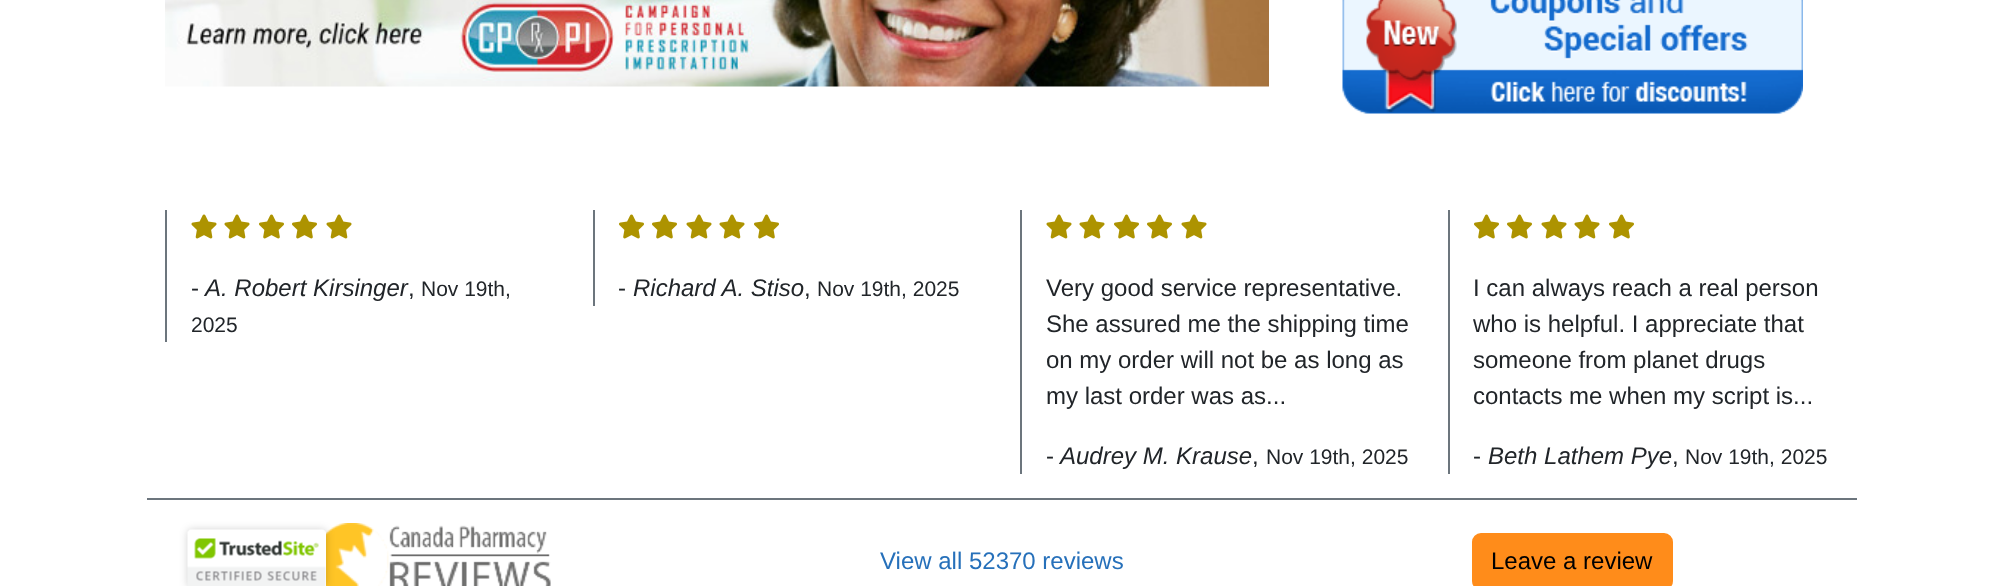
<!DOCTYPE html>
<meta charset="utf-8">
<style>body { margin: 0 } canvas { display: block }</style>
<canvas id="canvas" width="2003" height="586"></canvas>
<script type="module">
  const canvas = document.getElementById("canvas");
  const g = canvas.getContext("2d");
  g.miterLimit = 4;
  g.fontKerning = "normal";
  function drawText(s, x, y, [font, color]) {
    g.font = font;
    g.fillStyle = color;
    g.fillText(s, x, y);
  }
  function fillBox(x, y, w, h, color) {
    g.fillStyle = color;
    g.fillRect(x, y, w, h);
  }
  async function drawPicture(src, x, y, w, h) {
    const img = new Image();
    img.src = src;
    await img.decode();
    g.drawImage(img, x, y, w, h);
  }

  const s1 = ["24px Liberation Sans", "#212529"];
  const s2 = ["italic 24px Liberation Sans", "#212529"];
  const s3 = ["21px Liberation Sans", "#212529"];
  const s4 = ["24px Liberation Sans", "#2670BA"];
  const s5 = ["24px Liberation Sans", "#000000"];

  fillBox(0, 0, 2003, 586, "#FFFFFF");
  await drawPicture("pic1.png", 165, 0, 1104, 87);
  await drawPicture("pic2.png", 1342, 0, 461, 114);
  fillBox(147, 498, 1710, 2, "#6C757D");
  fillBox(165, 210, 2, 132, "#6C757D");
  await drawPicture("pic3.png", 191, 214, 26, 25);
  await drawPicture("pic3.png", 224, 214, 26, 25);
  await drawPicture("pic4.png", 259, 214, 25, 25);
  await drawPicture("pic4.png", 292, 214, 25, 25);
  await drawPicture("pic3.png", 326, 214, 26, 25);
  drawText("-", 191, 296, s1);
  drawText("A. Robert Kirsinger", 205, 296, s2);
  drawText("Nov 19th,", 421, 296, s3);
  drawText(",", 408, 296, s1);
  drawText("2025", 191, 332, s3);
  fillBox(593, 210, 2, 96, "#6C757D");
  await drawPicture("pic4.png", 619, 214, 25, 25);
  await drawPicture("pic4.png", 652, 214, 25, 25);
  await drawPicture("pic3.png", 686, 214, 26, 25);
  await drawPicture("pic3.png", 719, 214, 26, 25);
  await drawPicture("pic4.png", 754, 214, 25, 25);
  drawText("-", 618, 296, s1);
  drawText("Richard A. Stiso", 633, 296, s2);
  drawText("Nov 19th, 2025", 817, 296, s3);
  drawText(",", 804, 296, s1);
  fillBox(1020, 210, 2, 264, "#6C757D");
  await drawPicture("pic3.png", 1046, 214, 26, 25);
  await drawPicture("pic3.png", 1079, 214, 26, 25);
  await drawPicture("pic4.png", 1114, 214, 25, 25);
  await drawPicture("pic4.png", 1147, 214, 25, 25);
  await drawPicture("pic3.png", 1181, 214, 26, 25);
  drawText("Very good service representative.", 1046, 296, s1);
  drawText("She assured me the shipping time", 1046, 332, s1);
  drawText("on my order will not be as long as", 1046, 368, s1);
  drawText("my last order was as...", 1046, 404, s1);
  drawText("-", 1046, 464, s1);
  drawText("Audrey M. Krause", 1060, 464, s2);
  drawText("Nov 19th, 2025", 1266, 464, s3);
  drawText(",", 1252, 464, s1);
  fillBox(1448, 210, 2, 264, "#6C757D");
  await drawPicture("pic4.png", 1474, 214, 25, 25);
  await drawPicture("pic4.png", 1507, 214, 25, 25);
  await drawPicture("pic3.png", 1541, 214, 26, 25);
  await drawPicture("pic3.png", 1574, 214, 26, 25);
  await drawPicture("pic4.png", 1609, 214, 25, 25);
  drawText("I can always reach a real person", 1473, 296, s1);
  drawText("who is helpful. I appreciate that", 1473, 332, s1);
  drawText("someone from planet drugs", 1473, 368, s1);
  drawText("contacts me when my script is...", 1473, 404, s1);
  drawText("-", 1473, 464, s1);
  drawText("Beth Lathem Pye", 1488, 464, s2);
  drawText("Nov 19th, 2025", 1685, 464, s3);
  drawText(",", 1672, 464, s1);
  await drawPicture("pic5.png", 325, 523, 226, 63);
  drawText("View all 52370 reviews", 880, 569, s4);
  g.fillStyle = "#FF8C1A";
  g.beginPath();
  g.roundRect(1473, 534, 199, 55, 8);
  g.fill();
  g.strokeStyle = "#FF8C1A";
  g.lineWidth = 2;
  g.stroke();
  drawText("Leave a review", 1491, 569, s5);
  g.fillStyle = "rgba(0, 0, 0, 0.2)";
  g.filter = "blur(4px)";
  g.beginPath();
  g.roundRect(188, 530, 138, 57, 3);
  g.fill();
  g.filter = "none";
  g.fillStyle = "#FFFFFF";
  g.beginPath();
  g.moveTo(191, 530);
  g.lineTo(323, 530);
  g.bezierCurveTo(324.5, 530, 326, 531.5, 326, 533);
  g.lineTo(326, 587);
  g.lineTo(188, 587);
  g.lineTo(188, 533);
  g.bezierCurveTo(188, 531.5, 189.5, 530, 191, 530);
  g.closePath();
  g.fill();
  await drawPicture("pic6.png", 187, 529, 139, 57);
</script>
